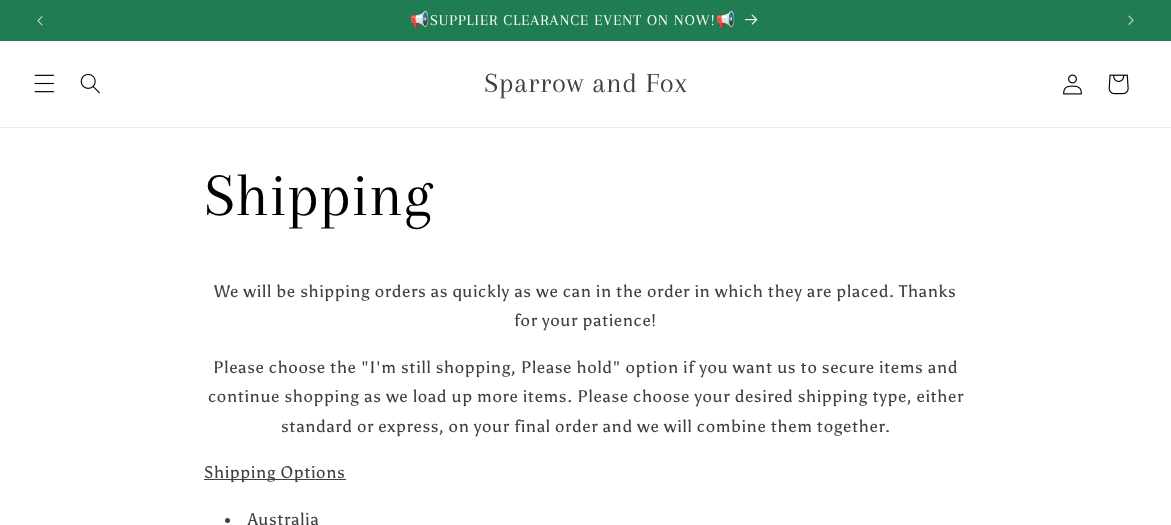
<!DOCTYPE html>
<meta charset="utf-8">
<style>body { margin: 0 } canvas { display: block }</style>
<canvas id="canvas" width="1171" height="525"></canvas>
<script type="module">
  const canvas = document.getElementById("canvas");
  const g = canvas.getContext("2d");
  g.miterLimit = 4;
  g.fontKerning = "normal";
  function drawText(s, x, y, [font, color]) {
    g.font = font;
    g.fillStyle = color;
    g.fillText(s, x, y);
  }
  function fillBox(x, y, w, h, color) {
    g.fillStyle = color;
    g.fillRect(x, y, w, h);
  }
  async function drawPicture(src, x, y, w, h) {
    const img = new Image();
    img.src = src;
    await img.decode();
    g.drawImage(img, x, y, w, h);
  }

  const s1 = ["15.6px Noto Color Emoji", "#FFFFFF"];
  const s2 = ["15.6px Arapey", "#FFFFFF"];
  const s3 = ["28.75px Arapey", "#404040"];
  const s4 = ["62.5px Arapey", "#000000"];
  const s5 = ["16.8px Asul", "#404040"];

  fillBox(0, 0, 1171, 525, "#FFFFFF");
  fillBox(0, 0, 1171, 41, "#1F7C53");
  await drawPicture("pic1.png", 37, 16, 6, 10);
  g.letterSpacing = "1.05px";
  drawText("📢", 410, 25, s1);
  drawText("SUPPLIER CLEARANCE EVENT ON NOW!", 430, 25, s2);
  drawText("📢", 716, 25, s1);
  await drawPicture("pic2.png", 745, 14, 13, 11);
  await drawPicture("pic3.png", 1128, 15, 6, 10);
  fillBox(0, 127, 1171, 1, "#EBEBEB");
  await drawPicture("pic4.png", 34, 74, 20, 19);
  await drawPicture("pic5.png", 80, 73, 20, 21);
  g.letterSpacing = "0.75px";
  drawText("Sparrow and Fox", 484, 92, s3);
  await drawPicture("pic6.png", 1063, 74, 19, 21);
  await drawPicture("pic7.png", 1108, 74, 21, 21);
  drawText("Shipping", 204, 215, s4);
  g.letterSpacing = "0.63px";
  drawText("We will be shipping orders as quickly as we can in the order in which they are placed. Thanks", 214, 297, s5);
  drawText("for your patience!", 514, 326, s5);
  drawText("Please choose the \"I'm still shopping, Please hold\" option if you want us to secure items and", 213, 373, s5);
  drawText("continue shopping as we load up more items. Please choose your desired shipping type, either", 208, 402, s5);
  drawText("standard or express, on your final order and we will combine them together.", 281, 432, s5);
  fillBox(204, 479, 142, 1, "#404040");
  drawText("Shipping Options", 204, 478, s5);
  g.beginPath();
  g.arc(227.5, 520.5, 2.5, 0, Math.PI * 2);
  g.fill();
  drawText("Australia", 248, 525, s5);
</script>
